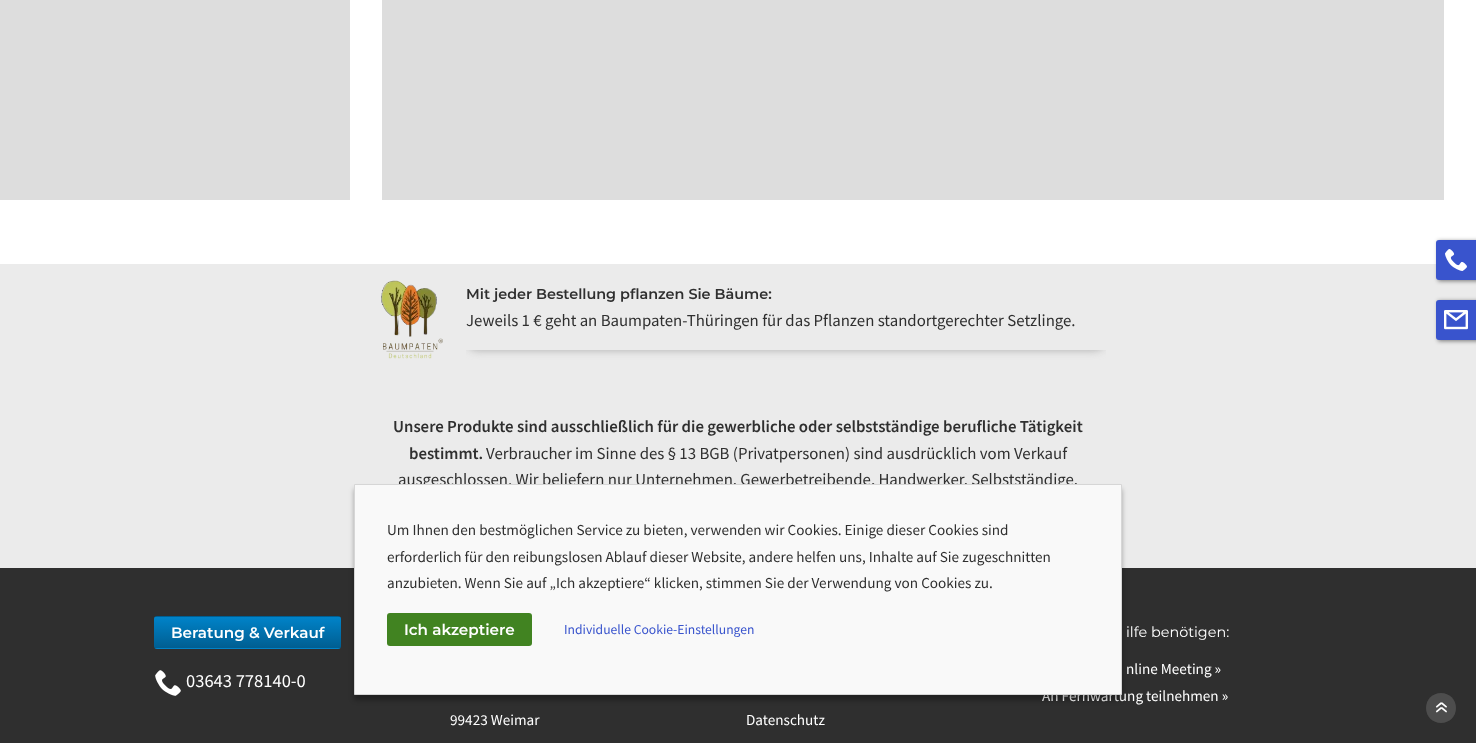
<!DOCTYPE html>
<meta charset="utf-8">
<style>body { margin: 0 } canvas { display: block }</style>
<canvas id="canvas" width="1476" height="743"></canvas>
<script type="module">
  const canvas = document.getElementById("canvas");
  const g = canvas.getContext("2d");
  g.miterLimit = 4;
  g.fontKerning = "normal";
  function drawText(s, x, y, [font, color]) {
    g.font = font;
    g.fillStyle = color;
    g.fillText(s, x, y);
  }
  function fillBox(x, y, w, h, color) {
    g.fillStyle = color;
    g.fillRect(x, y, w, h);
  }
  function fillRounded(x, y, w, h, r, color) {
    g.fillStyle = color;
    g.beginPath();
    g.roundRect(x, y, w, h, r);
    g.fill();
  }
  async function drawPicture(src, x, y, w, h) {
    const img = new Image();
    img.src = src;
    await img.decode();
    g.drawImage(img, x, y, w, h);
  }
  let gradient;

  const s1 = ["600 14.4px Montserrat", "#2F2F2F"];
  const s2 = ["16.8px Source Sans Pro", "#2F2F2F"];
  const s3 = ["600 16.8px Source Sans Pro", "#2F2F2F"];
  const s4 = ["600 15.2px Montserrat", "#FFFFFF"];
  const s5 = ["18.5px Source Sans Pro", "#FFFFFF"];
  const s6 = ["14.4px Montserrat", "#FFFFFF"];
  const s7 = ["15.2px Source Sans Pro", "#FFFFFF"];
  const s8 = ["15.2px Source Sans Pro", "#2F2F2F"];
  const s9 = ["13.6px Source Sans Pro", "#3954CD"];

  fillBox(0, 0, 1476, 743, "#FFFFFF");
  fillBox(0, 264, 1476, 304, "#EBEBEB");
  g.fillStyle = "rgba(0, 0, 0, 0.5)";
  g.filter = "blur(2px)";
  g.beginPath();
  g.rect(1438, 241, 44, 40);
  g.fill();
  g.filter = "none";
  g.fillStyle = "#3954CD";
  g.beginPath();
  g.roundRect(1436, 240, 40, 40, [3, 0, 0, 3]);
  g.fill();
  await drawPicture("pic1.png", 1445, 249, 22, 22);
  fillBox(0, 0, 350, 200, "#DDDDDD");
  fillBox(382, 0, 1062, 200, "#DDDDDD");
  await drawPicture("pic2.png", 381, 280, 62, 79);
  drawText("Mit jeder Bestellung pflanzen Sie Bäume:", 466, 299, s1);
  drawText("Jeweils 1 € geht an Baumpaten-Thüringen für das Pflanzen standortgerechter Setzlinge.", 466, 326, s2);
  g.save();
  g.beginPath();
  g.rect(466, 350, 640, 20);
  g.clip();
  g.fillStyle = "#ADADAD";
  g.filter = "blur(4px)";
  g.beginPath();
  g.roundRect(466, 325, 640, 25, 12);
  g.fill();
  g.filter = "none";
  g.restore();
  drawText("Unsere Produkte sind ausschließlich für die gewerbliche oder selbstständige berufliche Tätigkeit", 393, 432, s3);
  drawText("bestimmt.", 409, 459, s3);
  drawText("Verbraucher im Sinne des § 13 BGB (Privatpersonen) sind ausdrücklich vom Verkauf", 486, 459, s2);
  drawText("ausgeschlossen. Wir beliefern nur Unternehmen, Gewerbetreibende, Handwerker, Selbstständige,", 398, 485, s2);
  fillBox(0, 568, 1476, 175, "#2F2F2F");
  g.save();
  g.beginPath();
  g.roundRect(154, 616, 187, 33, 3);
  g.clip();
  gradient = g.createLinearGradient(248, 617, 248, 586);
  gradient.addColorStop(0, "#005E91");
  gradient.addColorStop(1, "#0083C9");
  g.fillStyle = gradient;
  g.fillRect(154, 616, 187, 1);
  gradient = g.createLinearGradient(248, 648, 248, 617);
  gradient.addColorStop(0, "#005E91");
  gradient.addColorStop(1, "#0083C9");
  g.fillStyle = gradient;
  g.fillRect(154, 617, 187, 31);
  gradient = g.createLinearGradient(248, 679, 248, 648);
  gradient.addColorStop(0, "#005E91");
  gradient.addColorStop(1, "#0083C9");
  g.fillStyle = gradient;
  g.fillRect(154, 648, 187, 1);
  g.restore();
  drawText("Beratung & Verkauf", 171, 638, s4);
  await drawPicture("pic3.png", 155, 670, 26, 26);
  drawText("03643 778140-0", 186, 687, s5);
  drawText("ilfe benötigen:", 1126, 637, s6);
  drawText("nline Meeting »", 1126, 674, s7);
  drawText("An Fernwartung teilnehmen »", 1042, 701, s7);
  drawText("99423 Weimar", 450, 725, s7);
  drawText("Datenschutz", 746, 725, s7);
  g.fillStyle = "rgba(0, 0, 0, 0.5)";
  g.filter = "blur(2px)";
  g.beginPath();
  g.rect(1438, 301, 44, 40);
  g.fill();
  g.filter = "none";
  g.fillStyle = "#3954CD";
  g.beginPath();
  g.roundRect(1436, 300, 40, 40, [3, 0, 0, 3]);
  g.fill();
  await drawPicture("pic4.png", 1444, 310, 24, 20);
  g.fillStyle = "rgba(0, 0, 0, 0.3)";
  g.filter = "blur(2.5px)";
  g.beginPath();
  g.rect(354, 489, 768, 211);
  g.fill();
  g.filter = "none";
  g.fillStyle = "#F9F9F9";
  g.beginPath();
  g.rect(354.5, 484.5, 767, 210);
  g.fill();
  g.strokeStyle = "#D6D6D6";
  g.stroke();
  drawText("Um Ihnen den bestmöglichen Service zu bieten, verwenden wir Cookies. Einige dieser Cookies sind", 387, 535, s8);
  drawText("erforderlich für den reibungslosen Ablauf dieser Website, andere helfen uns, Inhalte auf Sie zugeschnitten", 387, 562, s8);
  drawText("anzubieten. Wenn Sie auf „Ich akzeptiere“ klicken, stimmen Sie der Verwendung von Cookies zu.", 387, 588, s8);
  fillRounded(387, 613, 145, 33, 3, "#418321");
  drawText("Ich akzeptiere", 404, 635, s4);
  drawText("Individuelle Cookie-Einstellungen", 564, 634, s9);
  g.fillStyle = "#4D4D4D";
  g.beginPath();
  g.moveTo(1426, 708);
  g.bezierCurveTo(1426, 699.5, 1432.5, 693, 1441, 693);
  g.bezierCurveTo(1449.5, 693, 1456, 699.5, 1456, 708);
  g.bezierCurveTo(1456, 716.5, 1449.5, 723, 1441, 723);
  g.bezierCurveTo(1432.5, 723, 1426, 716.5, 1426, 708);
  g.closePath();
  g.fill();
  g.font = "30px Source Sans Pro";
  g.fillStyle = "#FFFFFF";
  g.save();
  g.translate(1449, 714);
  g.rotate(-90 * Math.PI / 180);
  g.fillText("»", 0, 0);
  g.restore();
</script>
